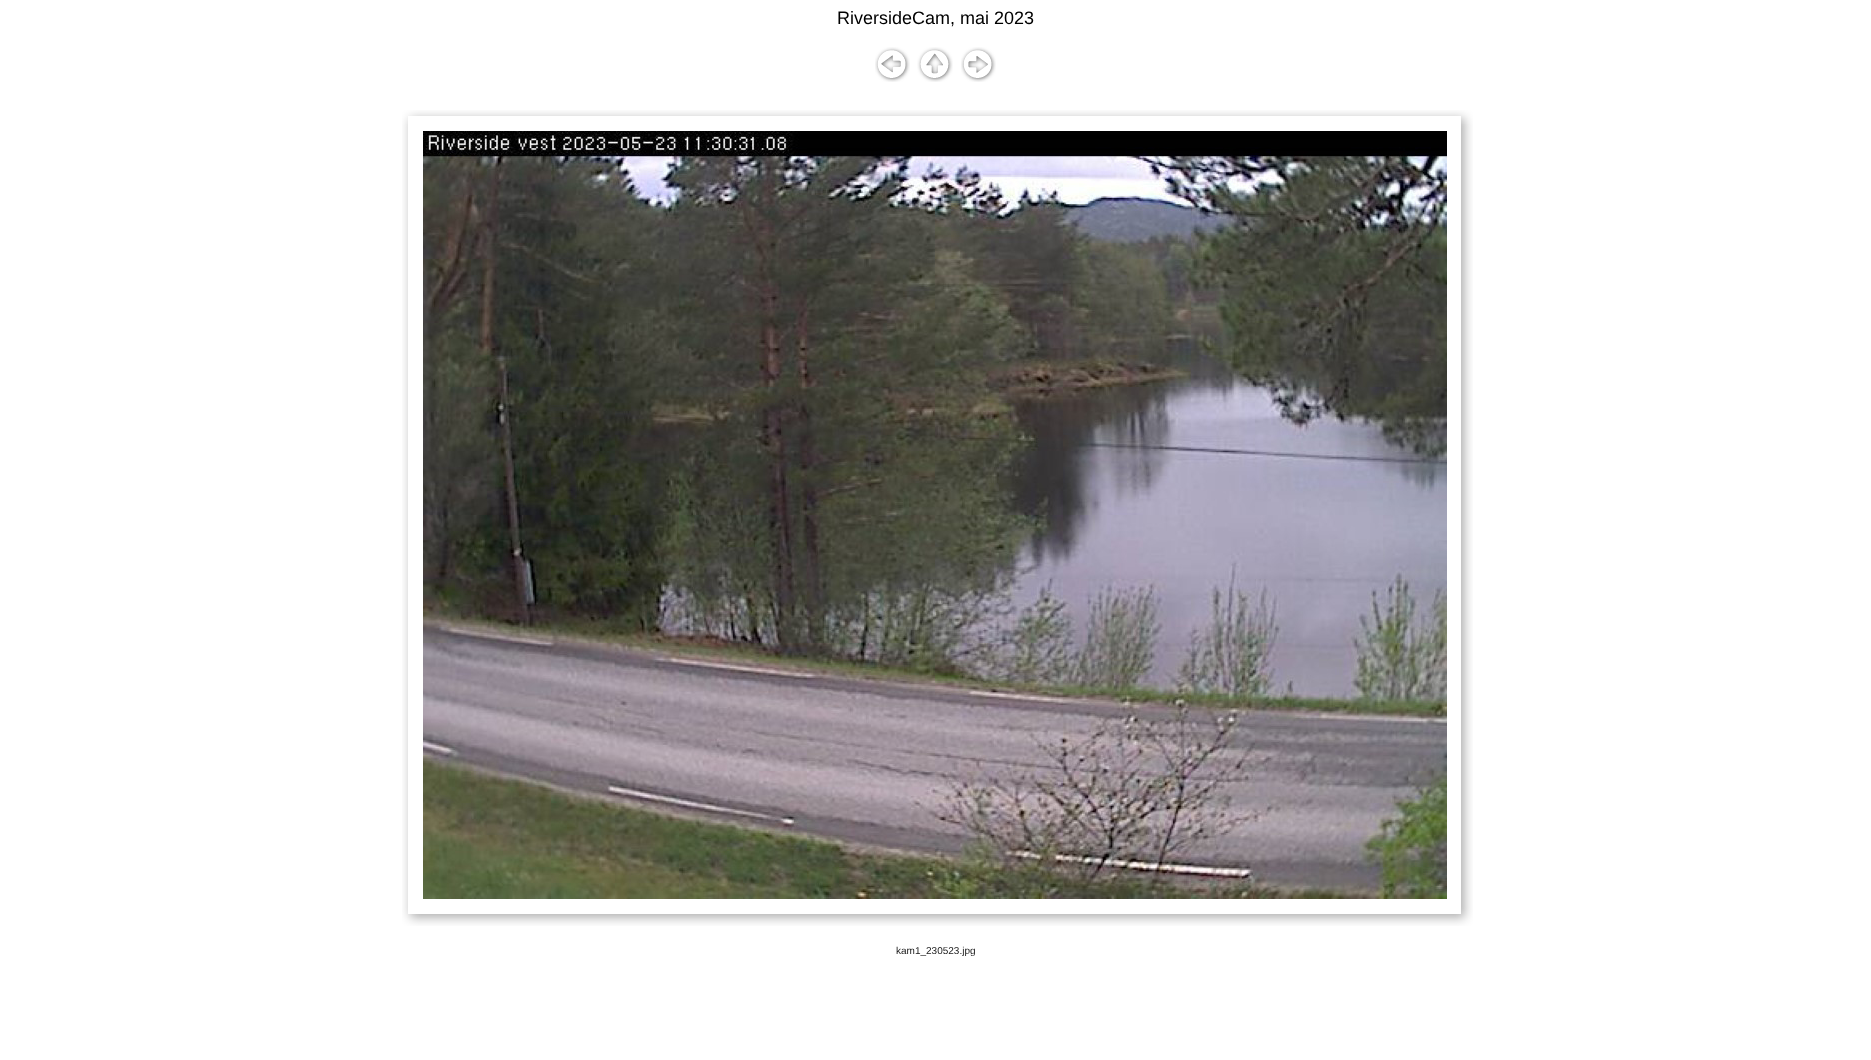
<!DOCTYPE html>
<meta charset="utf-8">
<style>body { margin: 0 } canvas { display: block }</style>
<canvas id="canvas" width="1871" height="1060"></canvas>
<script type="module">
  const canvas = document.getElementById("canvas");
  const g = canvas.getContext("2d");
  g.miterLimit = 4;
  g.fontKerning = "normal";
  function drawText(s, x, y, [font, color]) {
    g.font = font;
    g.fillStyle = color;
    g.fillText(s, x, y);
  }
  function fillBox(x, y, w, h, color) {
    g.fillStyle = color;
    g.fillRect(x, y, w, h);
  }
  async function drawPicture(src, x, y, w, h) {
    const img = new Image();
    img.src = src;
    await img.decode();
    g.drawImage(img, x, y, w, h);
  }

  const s1 = ["18px Liberation Sans", "#000000"];
  const s2 = ["10px Liberation Sans", "#191919"];

  fillBox(0, 0, 1871, 1060, "#FFFFFF");
  drawText("RiversideCam, mai 2023", 837, 24, s1);
  await drawPicture("pic1.png", 875, 47, 35, 35);
  await drawPicture("pic2.png", 917, 47, 36, 35);
  await drawPicture("pic3.png", 961, 47, 35, 35);
  await drawPicture("pic4.png", 402, 110, 21, 21);
  await drawPicture("pic5.png", 423, 110, 1024, 6);
  await drawPicture("pic6.png", 1447, 110, 26, 21);
  await drawPicture("pic7.png", 402, 131, 6, 768);
  await drawPicture("pic8.png", 423, 131, 1024, 768);
  await drawPicture("pic9.png", 1461, 131, 12, 768);
  await drawPicture("pic10.png", 402, 899, 21, 27);
  await drawPicture("pic11.png", 423, 914, 1024, 12);
  await drawPicture("pic12.png", 1447, 899, 26, 27);
  drawText("kam1_230523.jpg", 896, 954, s2);
</script>
